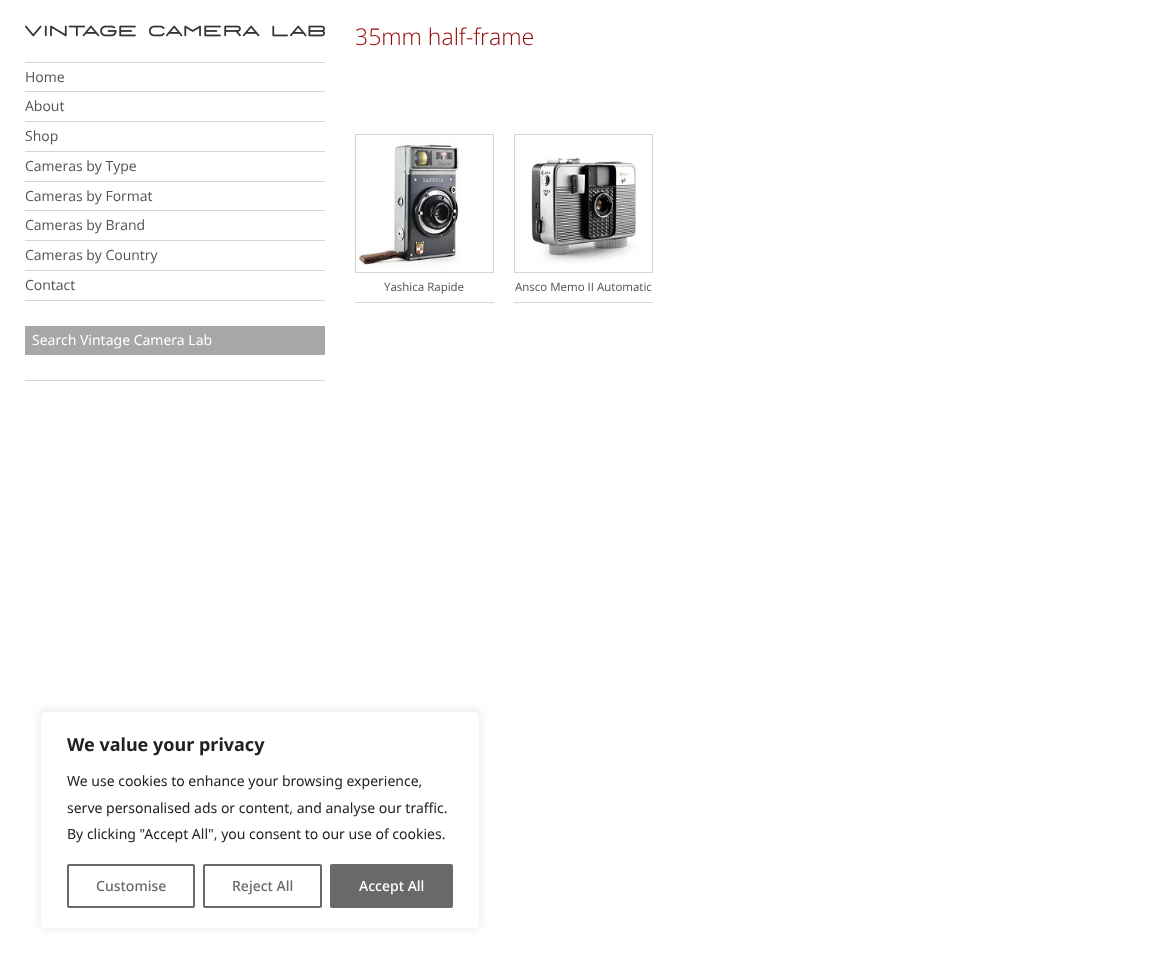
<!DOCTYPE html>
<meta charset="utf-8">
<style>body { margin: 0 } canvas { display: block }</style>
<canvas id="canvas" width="1154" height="969"></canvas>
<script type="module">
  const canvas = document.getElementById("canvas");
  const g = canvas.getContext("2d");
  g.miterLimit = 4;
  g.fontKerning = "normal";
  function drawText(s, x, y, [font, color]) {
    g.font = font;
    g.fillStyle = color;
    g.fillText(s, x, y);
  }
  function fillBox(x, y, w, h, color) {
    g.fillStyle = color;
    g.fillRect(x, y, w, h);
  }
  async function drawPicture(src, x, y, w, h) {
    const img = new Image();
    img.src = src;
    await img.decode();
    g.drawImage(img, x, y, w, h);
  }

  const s1 = ["14px Open Sans", "#525252"];
  const s2 = ["14px Noto Sans", "#FFFFFF"];
  const s3 = ["300 23px Open Sans", "#950000"];
  const s4 = ["11.5px Open Sans", "#525252"];
  const s5 = ["bold 18px Noto Sans", "#212121"];
  const s6 = ["14px Noto Sans", "#212121"];
  const s7 = ["500 14px Noto Sans", "#696969"];
  const s8 = ["500 14px Noto Sans", "#FFFFFF"];

  fillBox(0, 0, 1154, 969, "#FFFFFF");
  await drawPicture("pic1.png", 25, 25, 300, 12);
  fillBox(25, 62, 300, 1, "#D4D4D4");
  drawText("Home", 25, 82, s1);
  fillBox(25, 91, 300, 1, "#D4D4D4");
  drawText("About", 25, 111, s1);
  fillBox(25, 121, 300, 1, "#D4D4D4");
  drawText("Shop", 25, 141, s1);
  fillBox(25, 151, 300, 1, "#D4D4D4");
  drawText("Cameras by Type", 25, 171, s1);
  fillBox(25, 181, 300, 1, "#D4D4D4");
  drawText("Cameras by Format", 25, 201, s1);
  fillBox(25, 210, 300, 1, "#D4D4D4");
  drawText("Cameras by Brand", 25, 230, s1);
  fillBox(25, 240, 300, 1, "#D4D4D4");
  drawText("Cameras by Country", 25, 260, s1);
  fillBox(25, 270, 300, 1, "#D4D4D4");
  fillBox(25, 300, 300, 1, "#D4D4D4");
  drawText("Contact", 25, 290, s1);
  fillBox(25, 326, 300, 29, "#A7A7A7");
  drawText("Search Vintage Camera Lab", 32, 345, s2);
  fillBox(25, 380, 300, 1, "#D4D4D4");
  drawText("35mm half-frame", 355, 45, s3);
  await drawPicture("pic2.png", 356, 135, 137, 137);
  g.strokeStyle = "#D4D4D4";
  g.strokeRect(355.5, 134.5, 138, 138);
  fillBox(355, 302, 139, 1, "#D4D4D4");
  drawText("Yashica Rapide", 384, 291, s4);
  await drawPicture("pic3.png", 515, 135, 137, 137);
  g.strokeRect(514.5, 134.5, 138, 138);
  fillBox(514, 302, 139, 1, "#D4D4D4");
  drawText("Ansco Memo II Automatic", 515, 291, s4);
  g.fillStyle = "rgba(172, 171, 171, 0.3)";
  g.filter = "blur(5px)";
  g.beginPath();
  g.roundRect(40, 710, 440, 218, 6);
  g.fill();
  g.filter = "none";
  g.fillStyle = "#FFFFFF";
  g.beginPath();
  g.roundRect(40.5, 711.5, 439, 217, 5.5);
  g.fill();
  g.strokeStyle = "#F4F4F4";
  g.stroke();
  drawText("We value your privacy", 67, 751, s5);
  drawText("We use cookies to enhance your browsing experience,", 67, 786, s6);
  drawText("serve personalised ads or content, and analyse our traffic.", 67, 813, s6);
  drawText("By clicking \"Accept All\", you consent to our use of cookies.", 67, 839, s6);
  g.beginPath();
  g.roundRect(68, 865, 126, 42, 1);
  g.strokeStyle = "#696969";
  g.lineWidth = 2;
  g.stroke();
  drawText("Customise", 96, 891, s7);
  g.beginPath();
  g.roundRect(204, 865, 117, 42, 1);
  g.stroke();
  drawText("Reject All", 232, 891, s7);
  g.beginPath();
  g.roundRect(331, 865, 121, 42, 1);
  g.fill();
  g.stroke();
  drawText("Accept All", 359, 891, s8);
</script>
